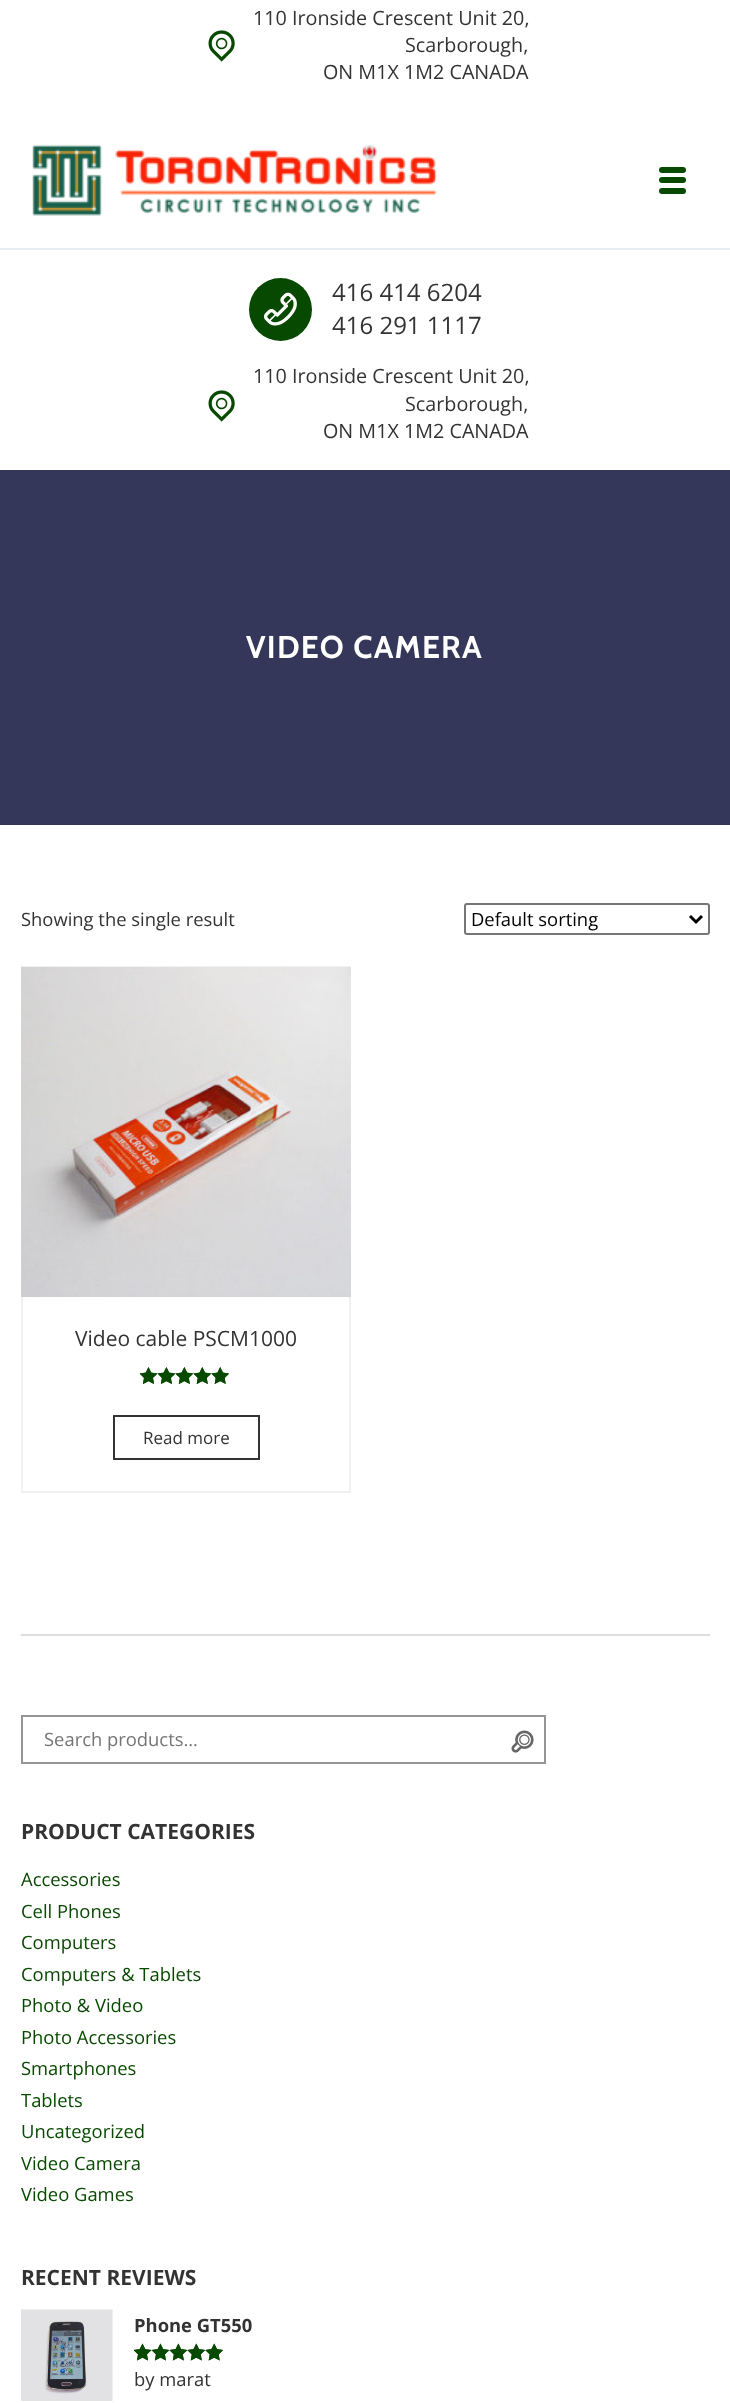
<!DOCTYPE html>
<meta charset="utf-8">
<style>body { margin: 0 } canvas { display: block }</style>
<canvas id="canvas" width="730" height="2403"></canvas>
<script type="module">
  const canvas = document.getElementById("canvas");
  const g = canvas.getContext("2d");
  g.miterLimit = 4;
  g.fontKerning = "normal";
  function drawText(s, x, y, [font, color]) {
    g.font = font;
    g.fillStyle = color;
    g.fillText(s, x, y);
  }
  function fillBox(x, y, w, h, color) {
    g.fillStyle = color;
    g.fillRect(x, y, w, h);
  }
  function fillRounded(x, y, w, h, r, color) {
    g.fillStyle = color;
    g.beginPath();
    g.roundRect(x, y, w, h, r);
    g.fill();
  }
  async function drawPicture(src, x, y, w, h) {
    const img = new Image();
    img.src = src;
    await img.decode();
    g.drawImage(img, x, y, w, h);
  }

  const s1 = ["19.75px Open Sans", "#333333"];
  const s2 = ["24px Open Sans", "#333333"];
  const s3 = ["bold 31.5px Cabin", "#FFFFFF"];
  const s4 = ["18.4px Open Sans", "#333333"];
  const s5 = ["18.4px Open Sans", "#000000"];
  const s6 = ["21px Open Sans", "#333333"];
  const s7 = ["17px Open Sans", "#333333"];
  const s8 = ["18.4px Open Sans", "#757575"];
  const s9 = ["bold 21px Open Sans", "#333333"];
  const s10 = ["18.4px Open Sans", "#084900"];
  const s11 = ["bold 18.4px Open Sans", "#333333"];

  fillBox(0, 0, 730, 2403, "#FFFFFF");
  await drawPicture("pic1.png", 208, 30, 27, 32);
  drawText("110 Ironside Crescent Unit 20,", 253, 25, s1);
  drawText("Scarborough,", 405, 52, s1);
  drawText("ON M1X 1M2 CANADA", 323, 79, s1);
  fillBox(0, 248, 730, 2, "#E8EDF3");
  await drawPicture("pic2.png", 32, 144, 405, 72);
  fillRounded(659, 167, 27, 6, 3, "#084900");
  fillRounded(659, 177, 27, 6, 3, "#084900");
  fillRounded(659, 188, 27, 6, 3, "#084900");
  g.beginPath();
  g.arc(280.5, 309.5, 31.5, 0, Math.PI * 2);
  g.fill();
  await drawPicture("pic3.png", 264, 292, 33, 34);
  drawText("416 414 6204", 332, 301, s2);
  drawText("416 291 1117", 332, 334, s2);
  await drawPicture("pic1.png", 208, 390, 27, 32);
  drawText("110 Ironside Crescent Unit 20,", 253, 383, s1);
  drawText("Scarborough,", 405, 411, s1);
  drawText("ON M1X 1M2 CANADA", 323, 438, s1);
  fillBox(0, 470, 730, 355, "#343759");
  g.letterSpacing = "1.25px";
  drawText("VIDEO CAMERA", 246, 658, s3);
  g.letterSpacing = "0px";
  drawText("Showing the single result", 21, 926, s4);
  g.beginPath();
  g.roundRect(465, 904, 244, 30, 2);
  g.strokeStyle = "#767676";
  g.lineWidth = 2;
  g.stroke();
  g.beginPath();
  g.moveTo(690, 916);
  g.lineTo(696, 922);
  g.lineTo(702, 916);
  g.strokeStyle = "#000000";
  g.lineWidth = 3;
  g.stroke();
  drawText("Default sorting", 471, 926, s5);
  g.strokeStyle = "#F1F1F1";
  g.lineWidth = 2;
  g.strokeRect(22, 967, 328, 525);
  await drawPicture("pic4.png", 21, 967, 330, 330);
  drawText("Video cable PSCM1000", 75, 1346, s6);
  await drawPicture("pic5.png", 140, 1367, 89, 17);
  await drawPicture("pic6.png", 140, 1367, 89, 17);
  g.strokeStyle = "#333333";
  g.strokeRect(114, 1416, 145, 43);
  drawText("Read more", 143, 1444, s7);
  fillBox(21, 1634, 689, 2, "#DDDDDD");
  g.strokeStyle = "#959595";
  g.strokeRect(22, 1716, 523, 47);
  drawText("Search products…", 44, 1746, s8);
  await drawPicture("pic7.png", 511, 1730, 23, 23);
  drawText("PRODUCT CATEGORIES", 21, 1839, s9);
  drawText("Accessories", 21, 1886, s10);
  drawText("Cell Phones", 21, 1918, s10);
  drawText("Computers", 21, 1949, s10);
  drawText("Computers & Tablets", 21, 1981, s10);
  drawText("Photo & Video", 21, 2012, s10);
  drawText("Photo Accessories", 21, 2044, s10);
  drawText("Smartphones", 21, 2075, s10);
  drawText("Tablets", 21, 2107, s10);
  drawText("Uncategorized", 21, 2138, s10);
  drawText("Video Camera", 21, 2170, s10);
  drawText("Video Games", 21, 2201, s10);
  drawText("RECENT REVIEWS", 21, 2285, s9);
  await drawPicture("pic8.png", 21, 2309, 92, 92);
  drawText("Phone GT550", 134, 2332, s11);
  await drawPicture("pic9.png", 134, 2343, 89, 18);
  await drawPicture("pic10.png", 134, 2343, 89, 18);
  drawText("by marat", 134, 2386, s4);
</script>
